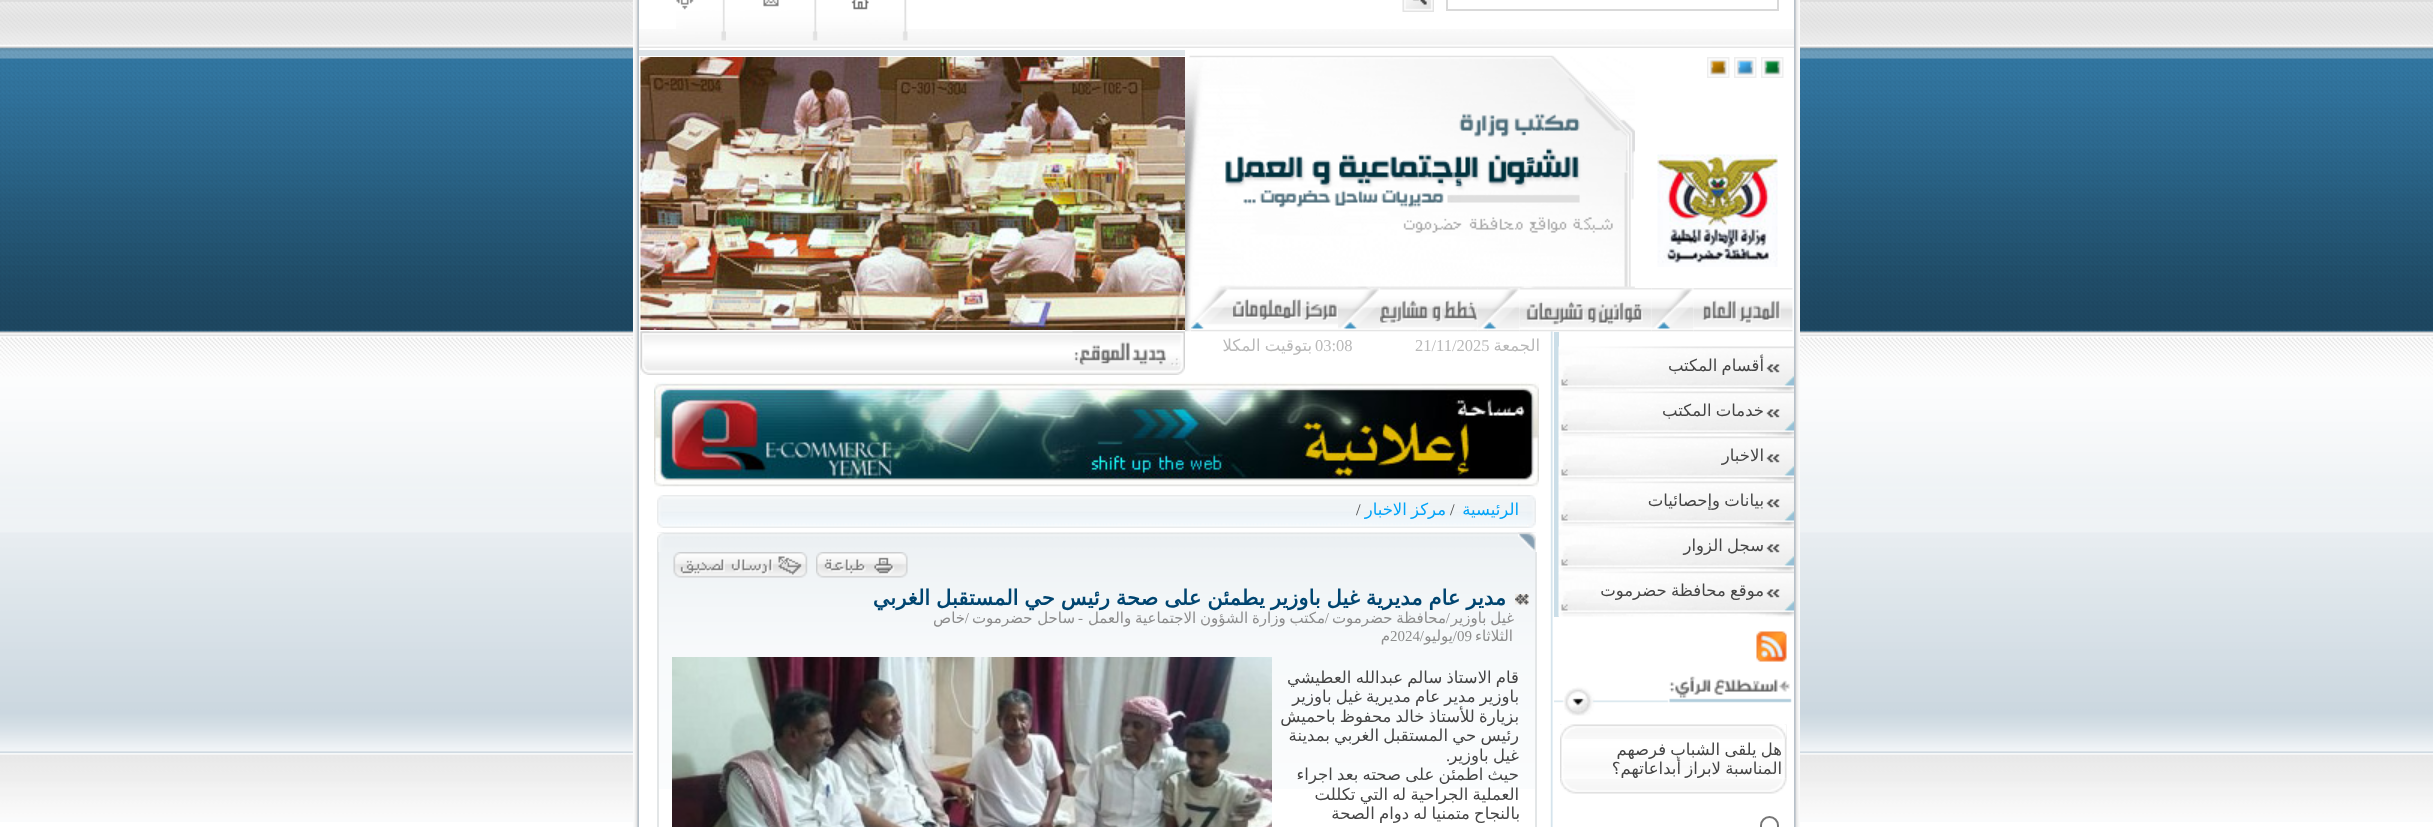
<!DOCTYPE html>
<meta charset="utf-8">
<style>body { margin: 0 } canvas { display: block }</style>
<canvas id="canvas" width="2433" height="827"></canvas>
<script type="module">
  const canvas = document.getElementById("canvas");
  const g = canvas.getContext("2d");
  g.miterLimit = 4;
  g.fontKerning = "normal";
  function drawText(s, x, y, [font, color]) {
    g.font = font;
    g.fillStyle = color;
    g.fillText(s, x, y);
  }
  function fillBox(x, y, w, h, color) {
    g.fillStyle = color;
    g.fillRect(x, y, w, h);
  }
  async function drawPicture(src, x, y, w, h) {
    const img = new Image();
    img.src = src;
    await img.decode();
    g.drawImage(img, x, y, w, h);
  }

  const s1 = ["16.5px DejaVu Sans", "#B9B9B9"];
  const s2 = ["16.5px Liberation Serif", "#B9B9B9"];
  const s3 = ["16.5px DejaVu Sans", "#454545"];
  const s4 = ["16.5px DejaVu Sans", "#00A3F8"];
  const s5 = ["16.5px Liberation Serif", "#454545"];
  const s6 = ["bold 21px DejaVu Sans", "#004570"];
  const s7 = ["15px Liberation Serif", "#8D8D8D"];
  const s8 = ["15px DejaVu Sans", "#8D8D8D"];

  fillBox(0, 0, 2433, 827, "#FFFFFF");
  await drawPicture("pic1.png", 0, 0, 2433, 822);
  await drawPicture("pic2.png", 633, 0, 1167, 827);
  fillBox(639, 0, 1155, 827, "#FFFFFF");
  await drawPicture("pic3.png", 639, 29, 1155, 19);
  g.strokeStyle = "#D9D9D9";
  g.lineWidth = 2;
  g.strokeRect(1447, -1, 331, 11);
  await drawPicture("pic4.png", 1402, 0, 32, 12);
  await drawPicture("pic6.png", 726, 0, 92, 41);
  await drawPicture("pic5.png", 817, 0, 91, 41);
  await drawPicture("pic7.png", 676, 0, 50, 41);
  await drawPicture("pic8.png", 1761, 57, 23, 21);
  await drawPicture("pic9.png", 1734, 57, 23, 21);
  await drawPicture("pic10.png", 1707, 57, 23, 21);
  await drawPicture("pic11.png", 1185, 55, 450, 233);
  await drawPicture("pic12.png", 1657, 154, 121, 113);
  await drawPicture("pic17.png", 1380, 288, 98, 44);
  await drawPicture("pic16.png", 1477, 288, 43, 44);
  await drawPicture("pic15.png", 1519, 288, 133, 44);
  await drawPicture("pic14.png", 1651, 288, 43, 44);
  await drawPicture("pic13.png", 1693, 288, 100, 44);
  await drawPicture("pic18.png", 1338, 288, 42, 44);
  await drawPicture("pic19.png", 1233, 288, 105, 44);
  await drawPicture("pic20.png", 1191, 288, 42, 44);
  await drawPicture("pic21.png", 1185, 288, 6, 44);
  fillBox(639, 50, 546, 6, "#DEE5E9");
  await drawPicture("pic22.png", 640, 57, 545, 273);
  await drawPicture("pic23.png", 1185, 331, 608, 496);
  g.direction = "rtl";
  drawText("الجمعة", 1540, 351, s1);
  g.direction = "ltr";
  drawText("21/11/2025", 1415, 351, s2);
  drawText("03:08", 1315, 351, s2);
  g.wordSpacing = "-1px";
  g.direction = "rtl";
  drawText("بتوقيت المكلا", 1312, 351, s1);
  await drawPicture("pic24.png", 640, 331, 545, 44);
  await drawPicture("pic25.png", 1072, 331, 113, 44);
  await drawPicture("pic26.png", 640, 331, 10, 44);
  await drawPicture("pic27.png", 654, 382, 885, 105);
  fillBox(1554, 332, 5, 285, "#CBDEE8");
  await drawPicture("pic28.png", 1558, 346, 236, 46);
  drawText("أقسام المكتب", 1764, 371, s3);
  await drawPicture("pic29.png", 1558, 391, 236, 46);
  drawText("خدمات المكتب", 1764, 416, s3);
  await drawPicture("pic29.png", 1558, 436, 236, 46);
  g.wordSpacing = "0px";
  drawText("الاخبار", 1764, 461, s3);
  await drawPicture("pic29.png", 1558, 481, 236, 46);
  g.wordSpacing = "-1px";
  drawText("بيانات وإحصائيات", 1764, 506, s3);
  await drawPicture("pic29.png", 1558, 526, 236, 46);
  drawText("سجل الزوار", 1764, 551, s3);
  await drawPicture("pic29.png", 1558, 571, 236, 46);
  drawText("موقع محافظة حضرموت", 1764, 596, s3);
  await drawPicture("pic30.png", 1756, 631, 31, 31);
  await drawPicture("pic31.png", 1554, 676, 238, 40);
  await drawPicture("pic32.png", 1560, 724, 227, 55);
  await drawPicture("pic33.png", 1560, 724, 227, 15);
  drawText("هل يلقى الشباب فرصهم", 1782, 755, s3);
  drawText("المناسبة لابراز أبداعاتهم؟", 1782, 774, s3);
  await drawPicture("pic34.png", 1560, 778, 227, 16);
  g.beginPath();
  g.roundRect(1761, 817, 17, 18, 8.5);
  g.strokeStyle = "#767676";
  g.stroke();
  await drawPicture("pic35.png", 663, 495, 864, 33);
  await drawPicture("pic36.png", 1527, 495, 9, 33);
  g.wordSpacing = "0px";
  drawText("الرئيسية", 1519, 515, s4);
  g.direction = "ltr";
  drawText("/", 1450, 515, s5);
  g.wordSpacing = "-1px";
  g.direction = "rtl";
  drawText("مركز الاخبار", 1446, 515, s4);
  g.wordSpacing = "0px";
  g.direction = "ltr";
  drawText("/", 1356, 515, s5);
  await drawPicture("pic37.png", 657, 495, 6, 33);
  await drawPicture("pic38.png", 657, 532, 879, 20);
  await drawPicture("pic39.png", 1518, 532, 18, 19);
  await drawPicture("pic40.png", 657, 532, 7, 20);
  await drawPicture("pic41.png", 659, 552, 876, 237);
  fillBox(1535, 552, 2, 275, "#E3E6E7");
  fillBox(657, 552, 2, 275, "#E3E6E7");
  await drawPicture("pic42.png", 816, 552, 92, 26);
  await drawPicture("pic43.png", 673, 552, 135, 26);
  await drawPicture("pic44.png", 1515, 594, 14, 11);
  g.wordSpacing = "-0.75px";
  g.direction = "rtl";
  drawText("مدير عام مديرية غيل باوزير يطمئن على صحة رئيس حي المستقبل الغربي", 1506, 605, s6);
  g.wordSpacing = "0px";
  drawText("/", 1450, 623, s7);
  g.wordSpacing = "-1px";
  drawText("غيل باوزير", 1514, 623, s8);
  drawText("محافظة حضرموت", 1446, 623, s8);
  g.wordSpacing = "0px";
  drawText("/", 1329, 623, s7);
  g.wordSpacing = "-1px";
  drawText("مكتب وزارة الشؤون الاجتماعية والعمل", 1325, 623, s8);
  g.wordSpacing = "0px";
  drawText("-", 1083, 623, s7);
  drawText("ساحل حضرموت", 1075, 623, s8);
  drawText("/", 969, 623, s7);
  drawText("خاص", 965, 623, s8);
  drawText("الثلاثاء", 1513, 641, s8);
  g.direction = "ltr";
  drawText("09", 1457, 641, s7);
  drawText("2024", 1390, 641, s7);
  g.direction = "rtl";
  drawText("/", 1424, 641, s7);
  drawText("يوليو", 1453, 641, s8);
  drawText("/", 1457, 641, s7);
  drawText("م", 1390, 641, s8);
  g.wordSpacing = "-1px";
  drawText("قام الاستاذ سالم عبدالله العطيشي", 1519, 683, s3);
  drawText("باوزير مدير عام مديرية غيل باوزير", 1519, 702, s3);
  drawText("بزيارة للأستاذ خالد محفوظ باحميش", 1519, 722, s3);
  drawText("رئيس حي المستقبل الغربي بمدينة", 1519, 741, s3);
  drawText("غيل باوزير", 1519, 761, s3);
  g.wordSpacing = "0px";
  drawText(".", 1450, 761, s5);
  await drawPicture("pic45.png", 672, 657, 600, 170);
  g.wordSpacing = "-1px";
  drawText("حيث اطمئن على صحته بعد اجراء", 1519, 780, s3);
  drawText("العملية الجراحية له التي تكللت", 1519, 800, s3);
  drawText("بالنجاح متمنيا له دوام الصحة", 1520, 819, s3);
</script>
